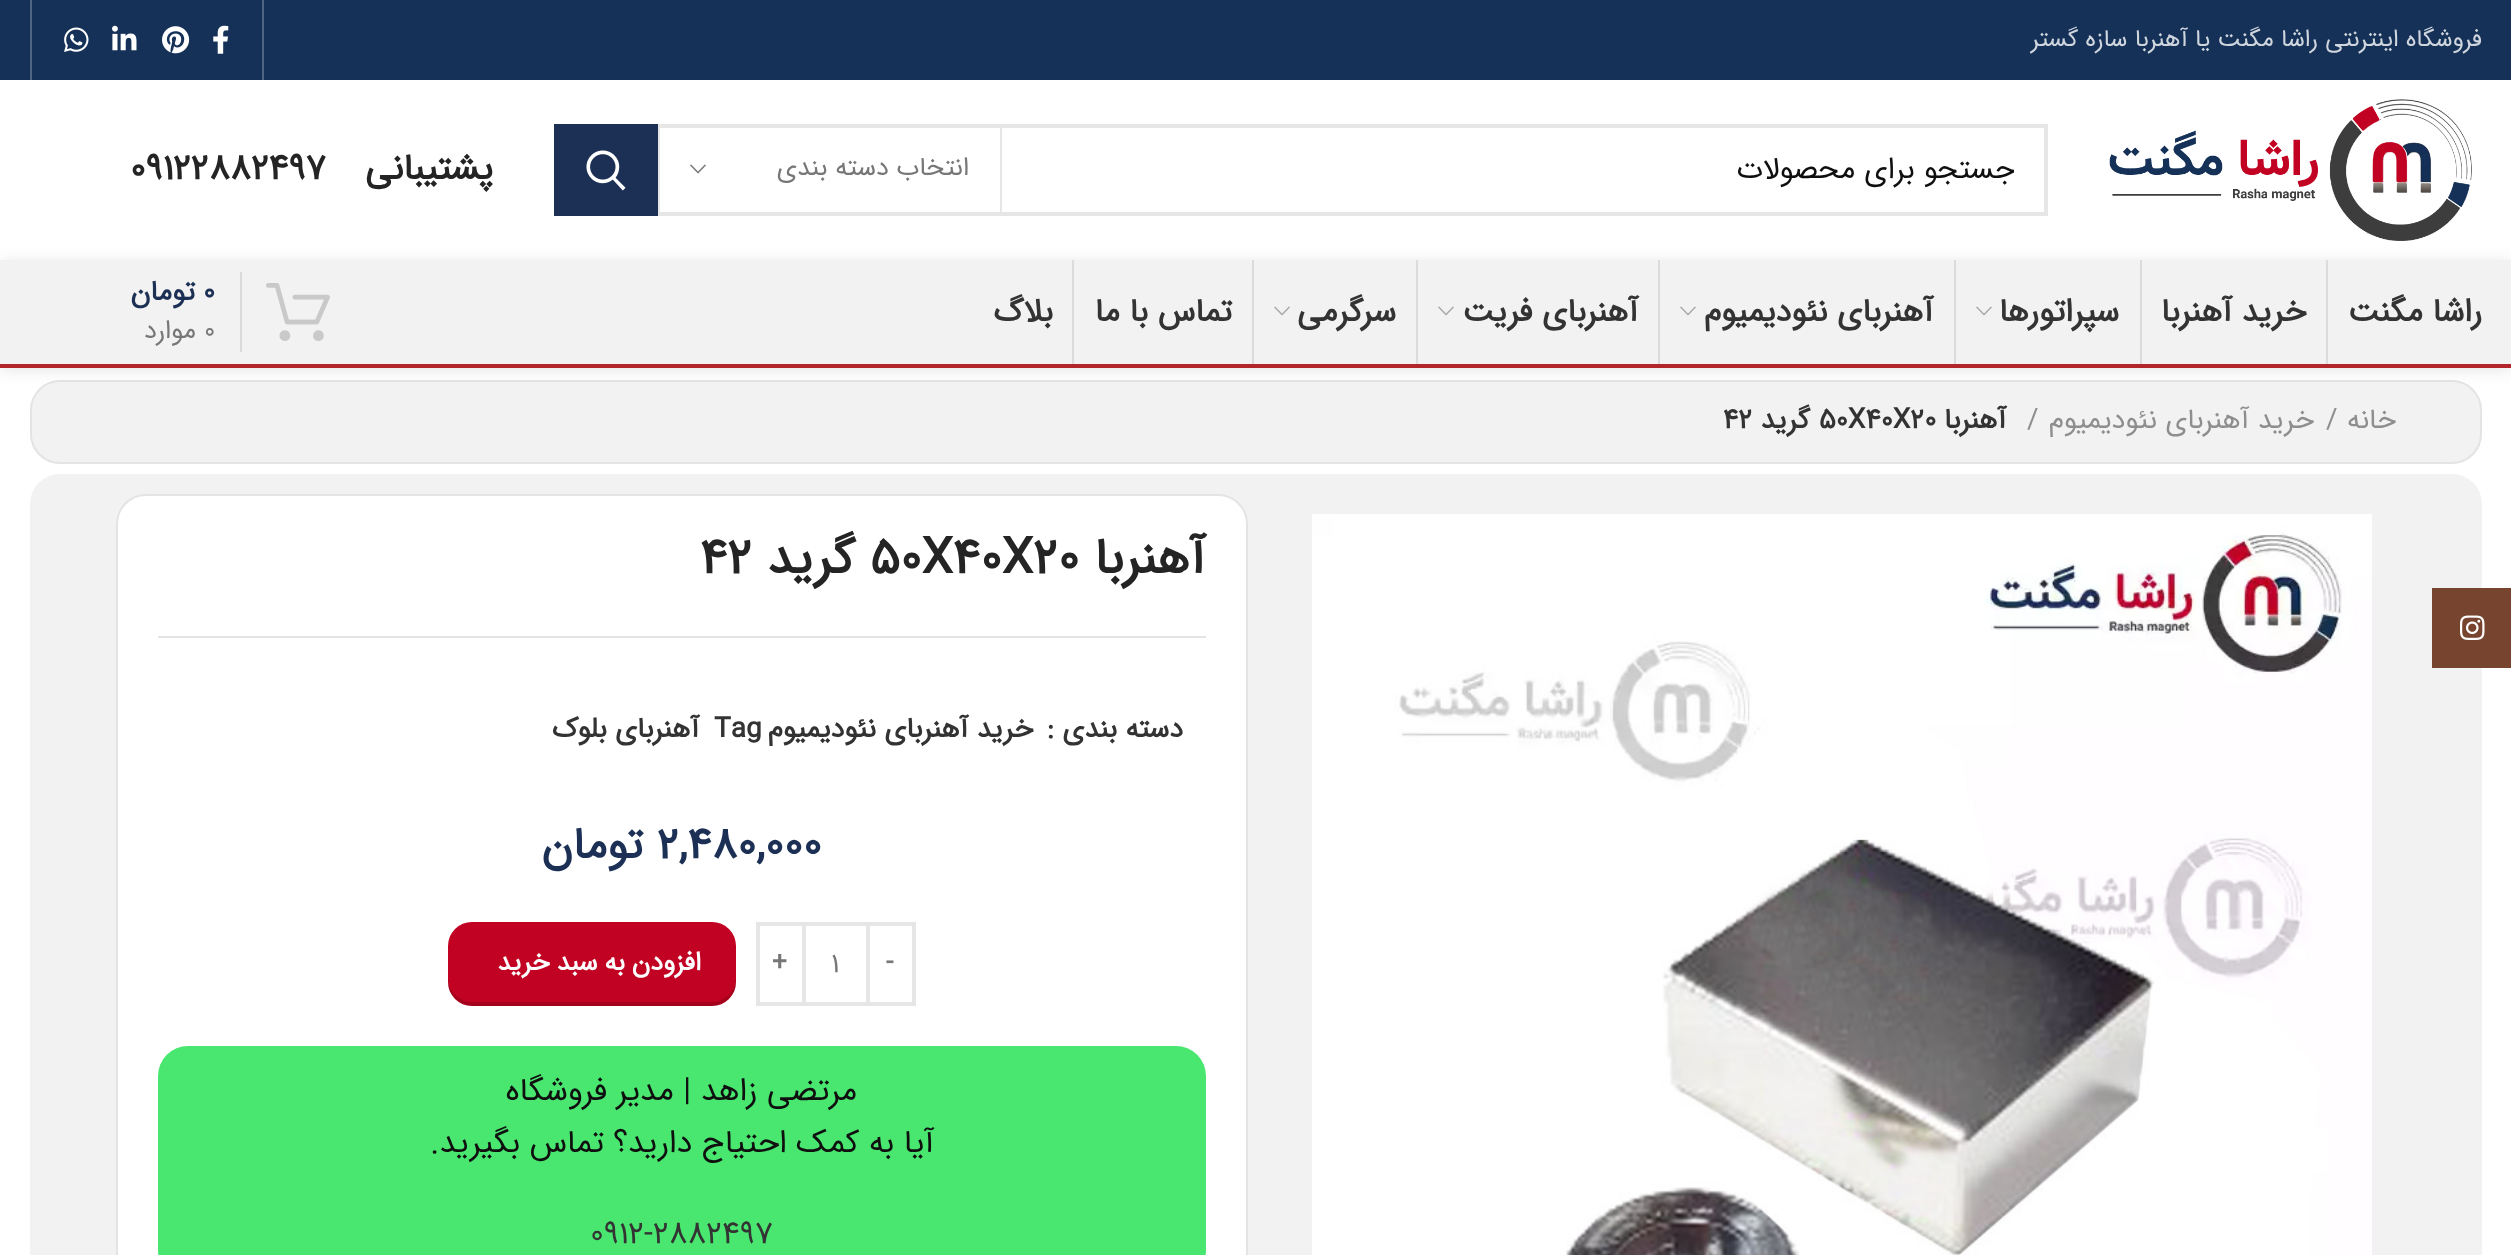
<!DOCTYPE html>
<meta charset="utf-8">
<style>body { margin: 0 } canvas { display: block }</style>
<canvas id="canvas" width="2511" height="1255"></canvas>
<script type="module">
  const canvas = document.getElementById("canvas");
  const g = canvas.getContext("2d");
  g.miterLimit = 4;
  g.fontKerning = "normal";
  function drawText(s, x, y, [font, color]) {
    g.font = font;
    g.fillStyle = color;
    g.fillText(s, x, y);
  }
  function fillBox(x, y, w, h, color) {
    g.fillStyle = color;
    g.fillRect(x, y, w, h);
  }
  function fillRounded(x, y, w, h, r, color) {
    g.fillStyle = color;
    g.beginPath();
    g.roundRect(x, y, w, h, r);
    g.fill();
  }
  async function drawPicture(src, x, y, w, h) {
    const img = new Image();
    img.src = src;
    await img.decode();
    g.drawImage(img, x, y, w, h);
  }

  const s1 = ["24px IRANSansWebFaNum", "#D0D6DE"];
  const s2 = ["30px IRANSansWebFaNum", "#0F0F0F"];
  const s3 = ["26px IRANSansWebFaNum", "#777777"];
  const s4 = ["bold 36px IRANSansWebFaNum", "#242424"];
  const s5 = ["bold 32px IRANSansWebFaNum", "#333333"];
  const s6 = ["bold 28px IRANSansWebFaNum", "#1C3055"];
  const s7 = ["28px IRANSansWebFaNum", "#8E8E8E"];
  const s8 = ["bold 28px IRANSansWebFaNum", "#333333"];
  const s9 = ["bold 50px IRANSansWebFaNum", "#242424"];
  const s10 = ["bold 44px IRANSansWebFaNum", "#1C3055"];
  const s11 = ["bold 26px IRANSansWebFaNum", "#777777"];
  const s12 = ["28px IRANSansWebFaNum", "#777777"];
  const s13 = ["bold 26px IRANSansWebFaNum", "#FDFDFD"];
  const s14 = ["32px IRANSansWebFaNum", "#0F0F0F"];
  const s15 = ["32px IRANSansWebFaNum", "#333333"];

  fillBox(0, 0, 2511, 1255, "#FFFFFF");
  fillBox(0, 0, 2511, 80, "#153158");
  g.direction = "rtl";
  drawText("فروشگاه اینترنتی راشا مگنت یا آهنربا سازه گستر", 2482, 46, s1);
  fillBox(262, 0, 2, 80, "#506582");
  await drawPicture("pic1.png", 213, 25, 16, 29);
  await drawPicture("pic2.png", 162, 26, 28, 28);
  await drawPicture("pic3.png", 112, 25, 25, 26);
  await drawPicture("pic4.png", 64, 27, 25, 25);
  fillBox(30, 0, 2, 80, "#506582");
  g.fillStyle = "#F2F2F2";
  g.beginPath();
  g.roundRect(31, 381, 2450, 82, 29);
  g.fill();
  g.strokeStyle = "#E4E4E4";
  g.lineWidth = 2;
  g.stroke();
  g.fillStyle = "rgba(0, 0, 0, 0.1)";
  g.filter = "blur(8px)";
  g.beginPath();
  g.rect(0, 262, 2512, 108);
  g.fill();
  g.filter = "none";
  await drawPicture("pic5.png", 2109, 99, 363, 142);
  g.strokeStyle = "#E6E6E6";
  g.lineWidth = 4;
  g.strokeRect(556, 126, 1490, 88);
  g.save();
  g.beginPath();
  g.rect(1018, 146, 996, 48);
  g.clip();
  drawText("جستجو برای محصولات", 2015, 178, s2);
  g.restore();
  fillBox(1000, 128, 2, 84, "#E6E6E6");
  fillBox(658, 128, 2, 84, "#E6E6E6");
  drawText("انتخاب دسته بندی", 969, 175, s3);
  await drawPicture("pic6.png", 690, 164, 16, 10);
  fillBox(554, 124, 104, 92, "#1C3055");
  await drawPicture("pic7.png", 586, 150, 40, 41);
  drawText("پشتیبانی", 493, 179, s4);
  g.direction = "ltr";
  drawText("09122882497", 130, 179, s4);
  fillBox(0, 260, 2511, 104, "#F2F2F2");
  fillBox(0, 364, 2511, 4, "#B2252B");
  g.direction = "rtl";
  drawText("راشا مگنت", 2482, 321, s5);
  fillBox(2326, 260, 2, 104, "#DBDBDB");
  drawText("خرید آهنربا", 2306, 321, s5);
  fillBox(2140, 260, 2, 104, "#DBDBDB");
  drawText("سپراتورها", 2119, 321, s5);
  await drawPicture("pic8.png", 1976, 306, 16, 10);
  fillBox(1954, 260, 2, 104, "#DBDBDB");
  drawText("آهنربای نئودیمیوم", 1933, 321, s5);
  await drawPicture("pic8.png", 1680, 306, 16, 10);
  fillBox(1658, 260, 2, 104, "#DBDBDB");
  drawText("آهنربای فریت", 1638, 321, s5);
  await drawPicture("pic8.png", 1438, 306, 16, 10);
  fillBox(1416, 260, 2, 104, "#DBDBDB");
  drawText("سرگرمی", 1396, 321, s5);
  await drawPicture("pic8.png", 1274, 306, 16, 10);
  fillBox(1252, 260, 2, 104, "#DBDBDB");
  drawText("تماس با ما", 1232, 321, s5);
  fillBox(1072, 260, 2, 104, "#DBDBDB");
  drawText("بلاگ", 1053, 321, s5);
  await drawPicture("pic9.png", 266, 283, 64, 58);
  fillBox(240, 272, 2, 80, "#DADADA");
  g.direction = "ltr";
  drawText("0", 203, 300, s6);
  g.direction = "rtl";
  drawText("تومان", 195, 300, s6);
  g.direction = "ltr";
  drawText("0", 204, 338, s3);
  g.direction = "rtl";
  drawText("موارد", 196, 338, s3);
  drawText("خانه", 2396, 428, s7);
  g.direction = "ltr";
  drawText("/", 2326, 428, s7);
  g.direction = "rtl";
  drawText("خرید آهنربای نئودیمیوم", 2314, 428, s7);
  g.direction = "ltr";
  drawText("/", 2027, 428, s7);
  g.direction = "rtl";
  drawText("آهنربا", 2006, 428, s8);
  g.direction = "ltr";
  drawText("50X40X20", 1819, 428, s8);
  g.direction = "rtl";
  drawText("گرید", 1810, 428, s8);
  g.direction = "ltr";
  drawText("42", 1723, 428, s8);
  fillRounded(30, 474, 2452, 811, 30, "#F2F2F2");
  await drawPicture("pic10.png", 1312, 514, 1060, 741);
  g.fillStyle = "#FFFFFF";
  g.beginPath();
  g.roundRect(117, 495, 1130, 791, 29);
  g.fill();
  g.strokeStyle = "#E4E4E4";
  g.lineWidth = 2;
  g.stroke();
  g.direction = "rtl";
  drawText("آهنربا", 1205, 573, s9);
  g.direction = "ltr";
  drawText("50X40X20", 870, 573, s9);
  g.direction = "rtl";
  drawText("گرید", 855, 573, s9);
  g.direction = "ltr";
  drawText("42", 700, 573, s9);
  fillBox(158, 636, 1048, 2, "#E4E4E4");
  g.direction = "rtl";
  drawText("دسته بندی :", 1183, 737, s8);
  drawText("خرید آهنربای نئودیمیوم", 1033, 737, s8);
  g.direction = "ltr";
  drawText("Tag", 714, 737, s8);
  g.direction = "rtl";
  drawText("آهنربای بلوک", 699, 737, s8);
  g.direction = "ltr";
  drawText("2,480,000", 657, 858, s10);
  g.direction = "rtl";
  drawText("تومان", 643, 858, s10);
  g.strokeStyle = "#E6E6E6";
  g.lineWidth = 4;
  g.strokeRect(868, 924, 46, 80);
  g.letterSpacing = "0.6px";
  g.direction = "ltr";
  drawText("-", 886, 970, s11);
  fillBox(806, 922, 60, 4, "#E6E6E6");
  fillBox(806, 1002, 60, 4, "#E6E6E6");
  g.letterSpacing = "0px";
  drawText("1", 831, 972, s12);
  g.strokeRect(758, 924, 46, 80);
  g.letterSpacing = "0.6px";
  drawText("+", 772, 970, s11);
  fillRounded(448, 922, 288, 84, 24, "#C20222");
  g.fillStyle = "rgba(0, 0, 0, 0.15)";
  g.beginPath();
  g.moveTo(448, 978);
  g.lineTo(448, 982);
  g.bezierCurveTo(448, 995, 459, 1006, 472, 1006);
  g.lineTo(712, 1006);
  g.bezierCurveTo(725, 1006, 736, 995, 736, 982);
  g.lineTo(736, 978);
  g.bezierCurveTo(736, 991, 725, 1002, 712, 1002);
  g.lineTo(472, 1002);
  g.bezierCurveTo(459, 1002, 448, 991, 448, 978);
  g.closePath();
  g.fill();
  g.wordSpacing = "-1.5px";
  g.direction = "rtl";
  drawText("افزودن به سبد خرید", 701, 970, s13);
  fillRounded(158, 1046, 1048, 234, 30, "#49E670");
  g.letterSpacing = "0px";
  g.wordSpacing = "0px";
  drawText("مرتضی زاهد | مدیر فروشگاه", 857, 1100, s14);
  drawText("آیا به کمک احتیاج دارید؟ تماس بگیرید.", 934, 1152, s14);
  g.direction = "ltr";
  drawText("0912-2882497", 590, 1243, s15);
  fillBox(2432, 588, 79, 80, "#774430");
  await drawPicture("pic11.png", 2460, 615, 25, 25);
</script>
